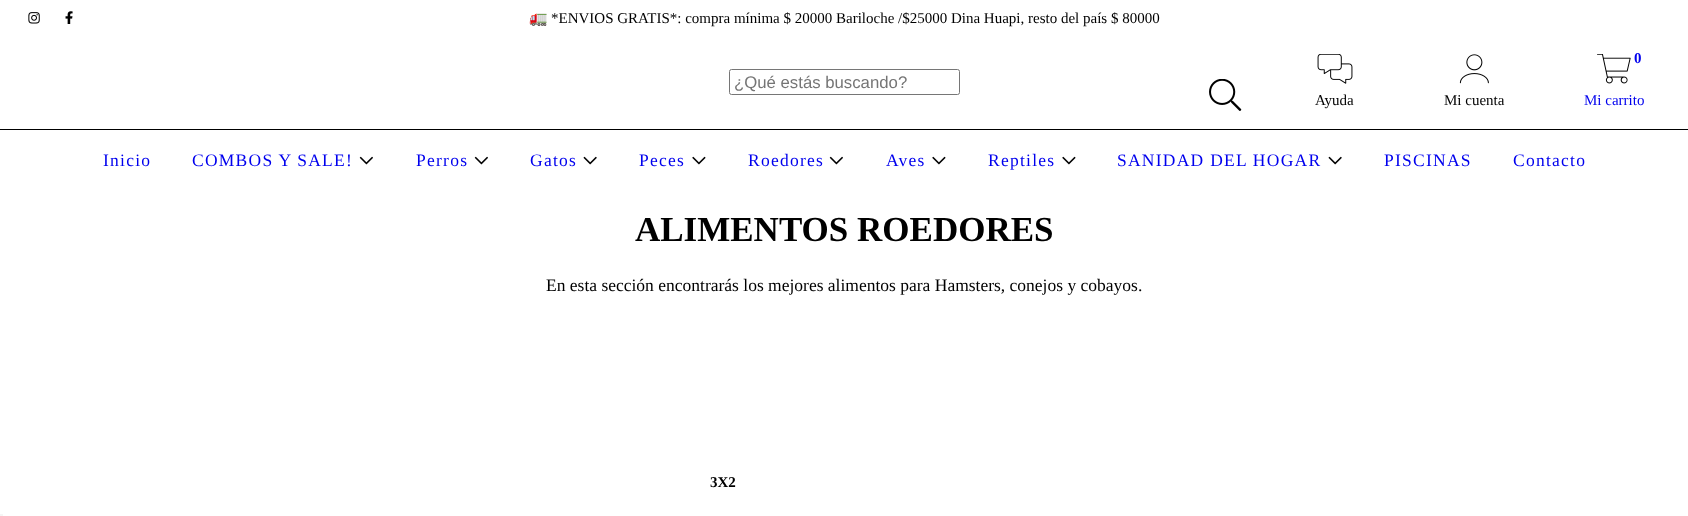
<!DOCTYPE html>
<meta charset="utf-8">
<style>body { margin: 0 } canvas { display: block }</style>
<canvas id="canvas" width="1688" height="516"></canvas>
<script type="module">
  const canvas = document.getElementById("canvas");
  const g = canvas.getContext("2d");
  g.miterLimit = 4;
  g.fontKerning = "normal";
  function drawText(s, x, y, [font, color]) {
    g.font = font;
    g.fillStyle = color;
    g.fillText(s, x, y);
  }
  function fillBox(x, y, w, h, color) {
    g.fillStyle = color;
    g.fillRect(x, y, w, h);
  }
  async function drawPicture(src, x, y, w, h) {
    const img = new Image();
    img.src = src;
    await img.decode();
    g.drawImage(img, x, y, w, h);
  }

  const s1 = ["15px Noto Color Emoji", "#000000"];
  const s2 = ["15px Liberation Serif", "#000000"];
  const s3 = ["16.75px Liberation Sans", "#757575"];
  const s4 = ["bold 15px Liberation Serif", "#0000EE"];
  const s5 = ["15px Liberation Serif", "#0000EE"];
  const s6 = ["17.5px Liberation Serif", "#0000EE"];
  const s7 = ["bold 35px Liberation Serif", "#000000"];
  const s8 = ["17.5px Liberation Serif", "#000000"];
  const s9 = ["bold 15px Liberation Serif", "#000000"];

  fillBox(0, 0, 1688, 516, "#FFFFFF");
  await drawPicture("pic1.png", 28, 12, 12, 12);
  await drawPicture("pic2.png", 65, 11, 8, 13);
  drawText("🚛", 529, 23, s1);
  drawText("*ENVIOS GRATIS*: compra mínima $ 20000 Bariloche /$25000 Dina Huapi, resto del país $ 80000", 551, 23, s2);
  g.beginPath();
  g.roundRect(729.5, 69.5, 230, 25, 2);
  g.strokeStyle = "#767676";
  g.stroke();
  drawText("¿Qué estás buscando?", 734, 88, s3);
  await drawPicture("pic3.png", 1209, 79, 33, 32);
  await drawPicture("pic4.png", 1317, 54, 36, 30);
  drawText("Ayuda", 1315, 105, s2);
  await drawPicture("pic5.png", 1459, 54, 30, 30);
  drawText("Mi cuenta", 1444, 105, s2);
  await drawPicture("pic6.png", 1597, 54, 34, 30);
  drawText("0", 1634, 63, s4);
  drawText("Mi carrito", 1584, 105, s5);
  fillBox(0, 129, 1688, 1, "#000000");
  g.letterSpacing = "1.25px";
  drawText("Inicio", 103, 166, s6);
  drawText("COMBOS Y SALE!", 192, 166, s6);
  await drawPicture("pic7.png", 359, 156, 14, 9);
  drawText("Perros", 416, 166, s6);
  await drawPicture("pic7.png", 474, 156, 14, 9);
  drawText("Gatos", 530, 166, s6);
  await drawPicture("pic8.png", 583, 156, 14, 9);
  drawText("Peces", 639, 166, s6);
  await drawPicture("pic9.png", 692, 156, 14, 9);
  drawText("Roedores", 748, 166, s6);
  await drawPicture("pic7.png", 829, 156, 14, 9);
  drawText("Aves", 886, 166, s6);
  await drawPicture("pic9.png", 932, 156, 14, 9);
  drawText("Reptiles", 988, 166, s6);
  await drawPicture("pic9.png", 1062, 156, 14, 9);
  drawText("SANIDAD DEL HOGAR", 1117, 166, s6);
  await drawPicture("pic8.png", 1328, 156, 14, 9);
  drawText("PISCINAS", 1384, 166, s6);
  drawText("Contacto", 1513, 166, s6);
  g.letterSpacing = "0px";
  drawText("ALIMENTOS ROEDORES", 635, 241, s7);
  drawText("En esta sección encontrarás los mejores alimentos para Hamsters, conejos y cobayos.", 546, 291, s8);
  drawText("3X2", 710, 487, s9);
  fillBox(0, 514, 3, 2, "#F5F5F5");
</script>
